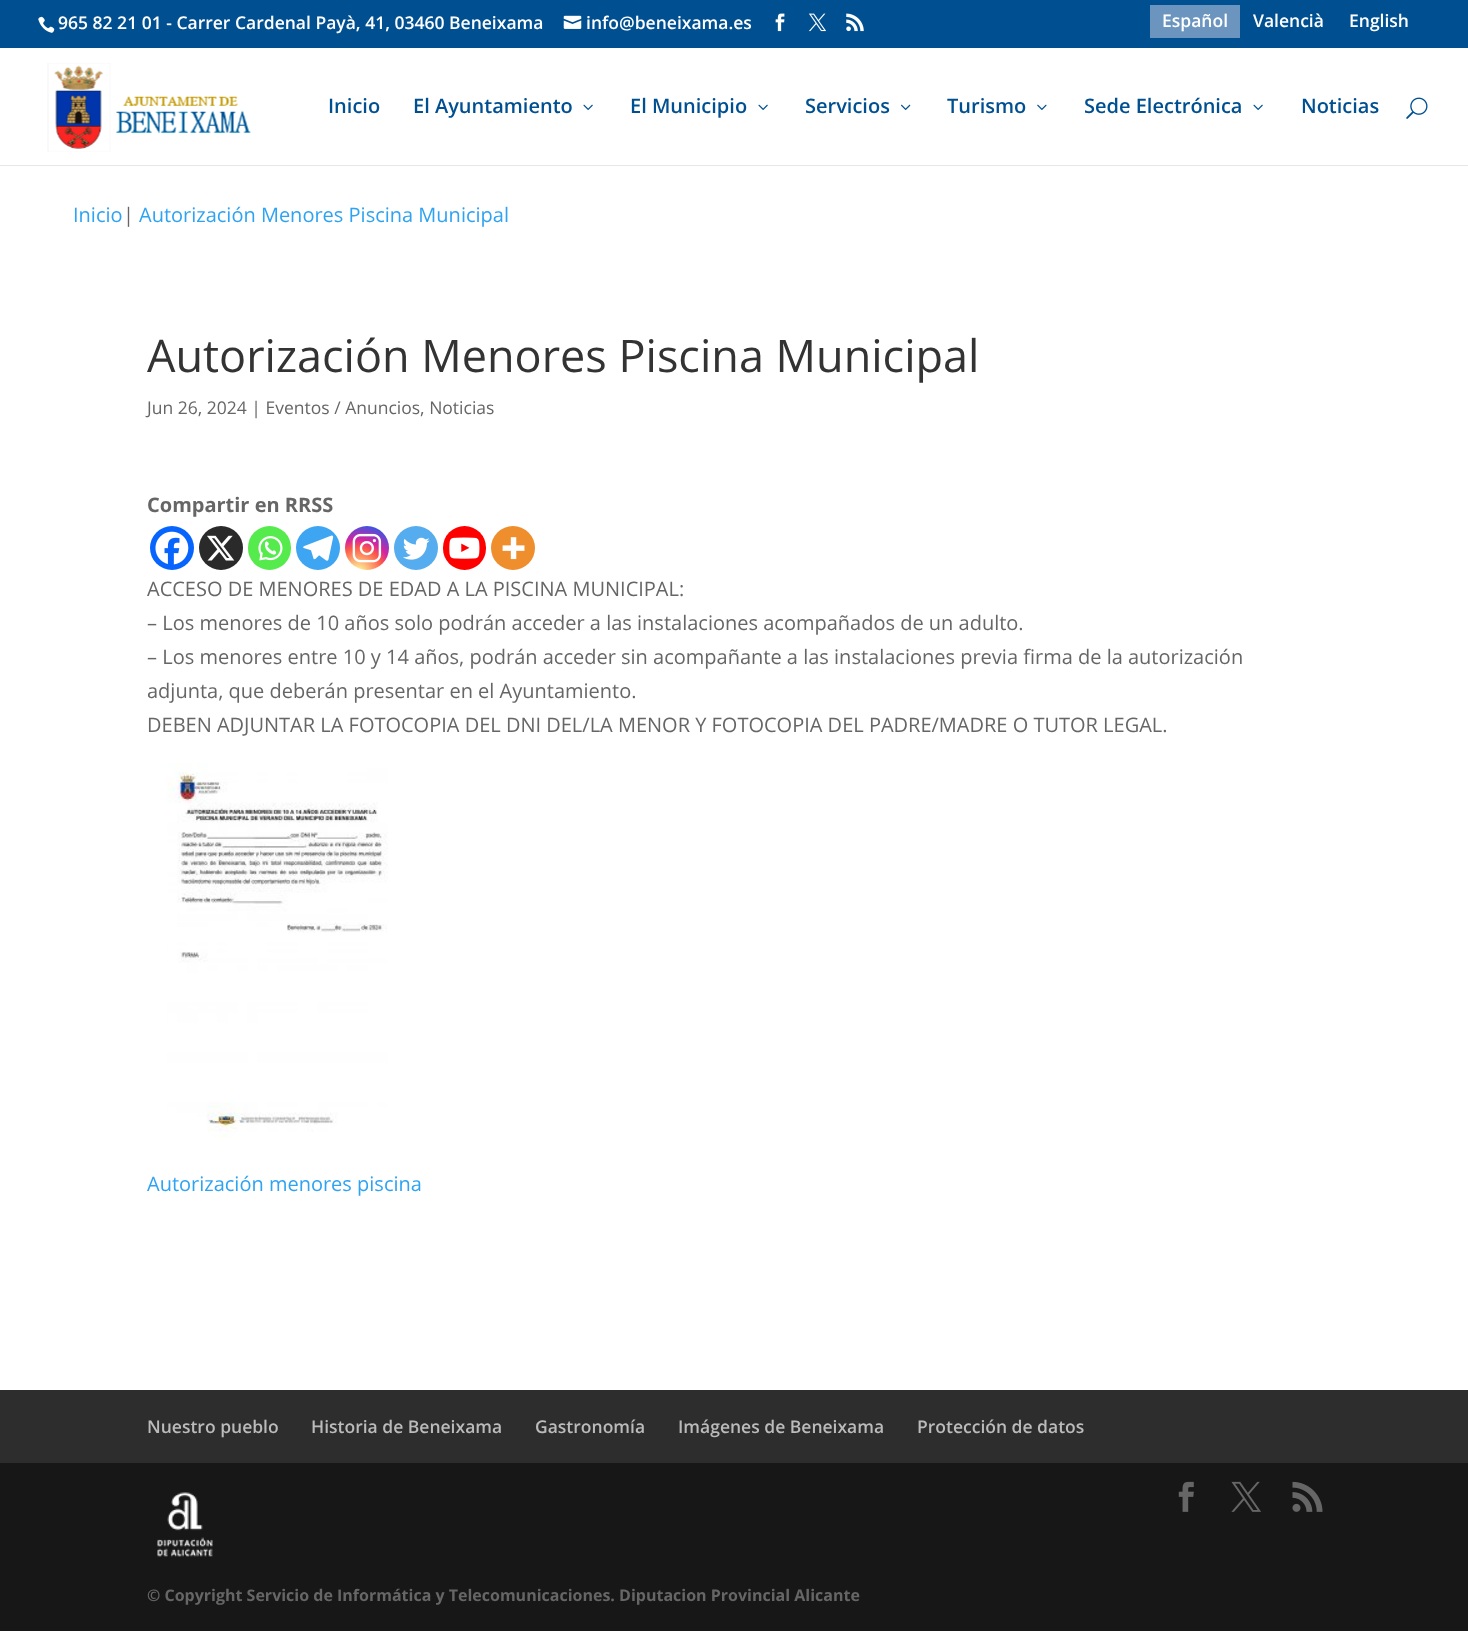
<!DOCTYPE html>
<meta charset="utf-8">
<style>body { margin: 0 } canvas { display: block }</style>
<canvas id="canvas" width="1468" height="1639"></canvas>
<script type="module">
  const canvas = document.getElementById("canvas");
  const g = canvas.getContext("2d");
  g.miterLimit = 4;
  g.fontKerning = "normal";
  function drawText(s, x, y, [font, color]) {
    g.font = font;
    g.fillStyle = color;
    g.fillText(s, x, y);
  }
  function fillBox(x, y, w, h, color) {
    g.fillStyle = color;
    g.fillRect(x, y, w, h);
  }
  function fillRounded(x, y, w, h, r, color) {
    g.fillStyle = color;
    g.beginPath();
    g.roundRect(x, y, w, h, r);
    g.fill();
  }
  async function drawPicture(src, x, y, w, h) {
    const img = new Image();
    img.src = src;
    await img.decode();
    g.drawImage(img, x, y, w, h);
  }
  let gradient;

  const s1 = ["600 17.5px Open Sans", "#FFFFFF"];
  const s2 = ["600 20px Open Sans", "#005091"];
  const s3 = ["20px Open Sans", "#2EA3F2"];
  const s4 = ["20px Open Sans", "#666666"];
  const s5 = ["45px Open Sans", "#333333"];
  const s6 = ["17.5px Open Sans", "#666666"];
  const s7 = ["bold 20px Open Sans", "#666666"];
  const s8 = ["600 17.5px Open Sans", "#BBBBBB"];
  const s9 = ["bold 16px Open Sans", "#666666"];

  fillBox(0, 0, 1468, 1639, "#FFFFFF");
  fillBox(0, 0, 1468, 48, "#005091");
  await drawPicture("pic1.png", 38, 16, 17, 17);
  drawText("965 82 21 01 - Carrer Cardenal Payà, 41, 03460 Beneixama", 58, 29, s1);
  await drawPicture("pic2.png", 563, 15, 19, 14);
  drawText("info@beneixama.es", 586, 29, s1);
  await drawPicture("pic3.png", 775, 13, 10, 19);
  await drawPicture("pic4.png", 808, 13, 18, 19);
  await drawPicture("pic5.png", 846, 13, 18, 19);
  fillBox(1150, 5, 90, 33, "#6B95BF");
  drawText("Español", 1162, 27, s1);
  drawText("Valencià", 1253, 27, s1);
  drawText("English", 1349, 27, s1);
  g.fillStyle = "#E6E6E6";
  g.beginPath();
  g.moveTo(0, 165);
  g.lineTo(0, 166);
  g.lineTo(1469, 166);
  g.lineTo(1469, 49);
  g.lineTo(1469, 165);
  g.closePath();
  g.fill();
  await drawPicture("pic6.png", 47, 63, 204, 89);
  drawText("Inicio", 328, 113, s2);
  drawText("El Ayuntamiento", 413, 113, s2);
  await drawPicture("pic7.png", 583, 104, 10, 6);
  drawText("El Municipio", 630, 113, s2);
  await drawPicture("pic7.png", 758, 104, 10, 6);
  drawText("Servicios", 805, 113, s2);
  await drawPicture("pic8.png", 901, 104, 10, 6);
  drawText("Turismo", 947, 113, s2);
  await drawPicture("pic9.png", 1037, 104, 10, 6);
  drawText("Sede Electrónica", 1084, 113, s2);
  await drawPicture("pic7.png", 1253, 104, 10, 6);
  drawText("Noticias", 1301, 113, s2);
  await drawPicture("pic10.png", 1406, 97, 22, 22);
  drawText("Inicio", 73, 222, s3);
  drawText("|", 123, 222, s4);
  drawText("Autorización Menores Piscina Municipal", 139, 222, s3);
  drawText("Autorización Menores Piscina Municipal", 147, 372, s5);
  drawText("Jun 26, 2024 | Eventos / Anuncios, Noticias", 147, 414, s6);
  drawText("Compartir en RRSS", 147, 512, s7);
  g.fillStyle = "#0765FE";
  g.beginPath();
  g.arc(172, 548, 22, 0, Math.PI * 2);
  g.fill();
  await drawPicture("pic11.png", 155, 531, 34, 34);
  g.fillStyle = "#2A2A2A";
  g.beginPath();
  g.arc(221, 548, 22, 0, Math.PI * 2);
  g.fill();
  await drawPicture("pic12.png", 207, 535, 28, 26);
  fillRounded(248, 526, 43, 44, 21.5, "#55EB4C");
  await drawPicture("pic13.png", 258, 536, 25, 25);
  g.fillStyle = "#3DA5F1";
  g.beginPath();
  g.arc(318, 548, 22, 0, Math.PI * 2);
  g.fill();
  await drawPicture("pic14.png", 303, 535, 31, 26);
  gradient = g.createRadialGradient(358, 573, 0, 358, 573, 56);
  gradient.addColorStop(0, "#FDF497");
  gradient.addColorStop(0.05, "#FDF497");
  gradient.addColorStop(0.45, "#FD5949");
  gradient.addColorStop(0.6, "#D6249F");
  gradient.addColorStop(0.9, "#285AEB");
  g.fillStyle = gradient;
  g.beginPath();
  g.arc(367, 548, 22, 0, Math.PI * 2);
  g.fill();
  await drawPicture("pic15.png", 352, 533, 30, 30);
  g.fillStyle = "#55ACEE";
  g.beginPath();
  g.arc(416, 548, 22, 0, Math.PI * 2);
  g.fill();
  await drawPicture("pic16.png", 403, 537, 27, 23);
  fillRounded(443, 526, 43, 44, 21.5, "#FF0000");
  await drawPicture("pic17.png", 449, 537, 31, 22);
  g.fillStyle = "#EE8E2D";
  g.beginPath();
  g.arc(513, 548, 22, 0, Math.PI * 2);
  g.fill();
  await drawPicture("pic18.png", 502, 537, 23, 23);
  drawText("ACCESO DE MENORES DE EDAD A LA PISCINA MUNICIPAL:", 147, 596, s4);
  drawText("– Los menores de 10 años solo podrán acceder a las instalaciones acompañados de un adulto.", 147, 630, s4);
  drawText("– Los menores entre 10 y 14 años, podrán acceder sin acompañante a las instalaciones previa firma de la autorización", 147, 664, s4);
  drawText("adjunta, que deberán presentar en el Ayuntamiento.", 147, 698, s4);
  drawText("DEBEN ADJUNTAR LA FOTOCOPIA DEL DNI DEL/LA MENOR Y FOTOCOPIA DEL PADRE/MADRE O TUTOR LEGAL.", 147, 732, s4);
  await drawPicture("pic19.png", 167, 763, 221, 375);
  drawText("Autorización menores piscina", 147, 1191, s3);
  fillBox(0, 1390, 1468, 73, "#2D2D2D");
  drawText("Nuestro pueblo", 147, 1433, s8);
  drawText("Historia de Beneixama", 311, 1433, s8);
  drawText("Gastronomía", 535, 1433, s8);
  drawText("Imágenes de Beneixama", 678, 1433, s8);
  drawText("Protección de datos", 917, 1433, s8);
  fillBox(0, 1463, 1468, 168, "#171717");
  await drawPicture("pic20.png", 1178, 1481, 16, 31);
  await drawPicture("pic21.png", 1231, 1481, 30, 31);
  await drawPicture("pic22.png", 1292, 1481, 31, 31);
  await drawPicture("pic23.png", 157, 1492, 56, 65);
  drawText("© Copyright Servicio de Informática y Telecomunicaciones. Diputacion Provincial Alicante", 147, 1601, s9);
</script>
